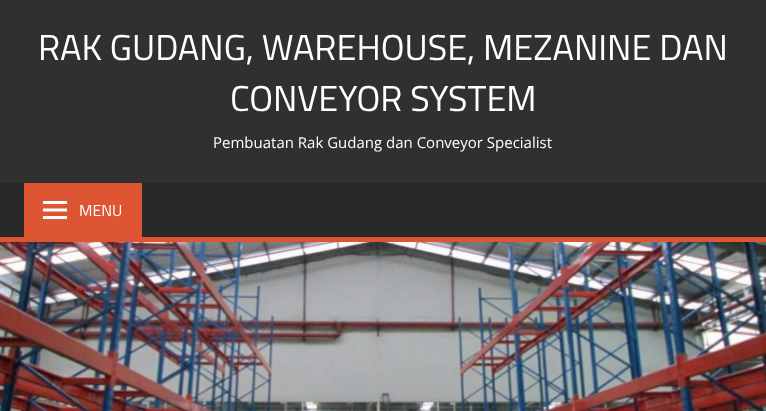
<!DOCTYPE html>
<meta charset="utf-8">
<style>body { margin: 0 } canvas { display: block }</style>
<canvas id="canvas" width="766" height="411"></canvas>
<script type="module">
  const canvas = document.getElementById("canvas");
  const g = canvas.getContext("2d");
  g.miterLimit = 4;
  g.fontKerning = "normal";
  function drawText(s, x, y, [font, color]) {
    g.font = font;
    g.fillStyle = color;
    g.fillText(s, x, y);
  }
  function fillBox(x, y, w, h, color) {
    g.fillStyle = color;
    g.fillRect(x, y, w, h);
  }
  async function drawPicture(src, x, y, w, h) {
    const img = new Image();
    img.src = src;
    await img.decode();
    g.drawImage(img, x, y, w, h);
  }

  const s1 = ["36px Titillium Web", "#FFFFFF"];
  const s2 = ["15px Open Sans", "#FFFFFF"];
  const s3 = ["16px Titillium Web", "#FFFFFF"];

  fillBox(0, 0, 766, 411, "#303030");
  drawText("RAK GUDANG, WAREHOUSE, MEZANINE DAN", 38, 60, s1);
  drawText("CONVEYOR SYSTEM", 230, 111, s1);
  drawText("Pembuatan Rak Gudang dan Conveyor Specialist", 213, 148, s2);
  fillBox(0, 184, 766, 53, "#292929");
  fillBox(0, 183, 766, 1, "#272727");
  fillBox(0, 237, 766, 5, "#DD5533");
  fillBox(24, 183, 118, 54, "#DD5533");
  await drawPicture("pic1.png", 43, 201, 24, 18);
  drawText("MENU", 79, 216, s3);
  await drawPicture("pic2.png", 0, 242, 766, 169);
</script>
